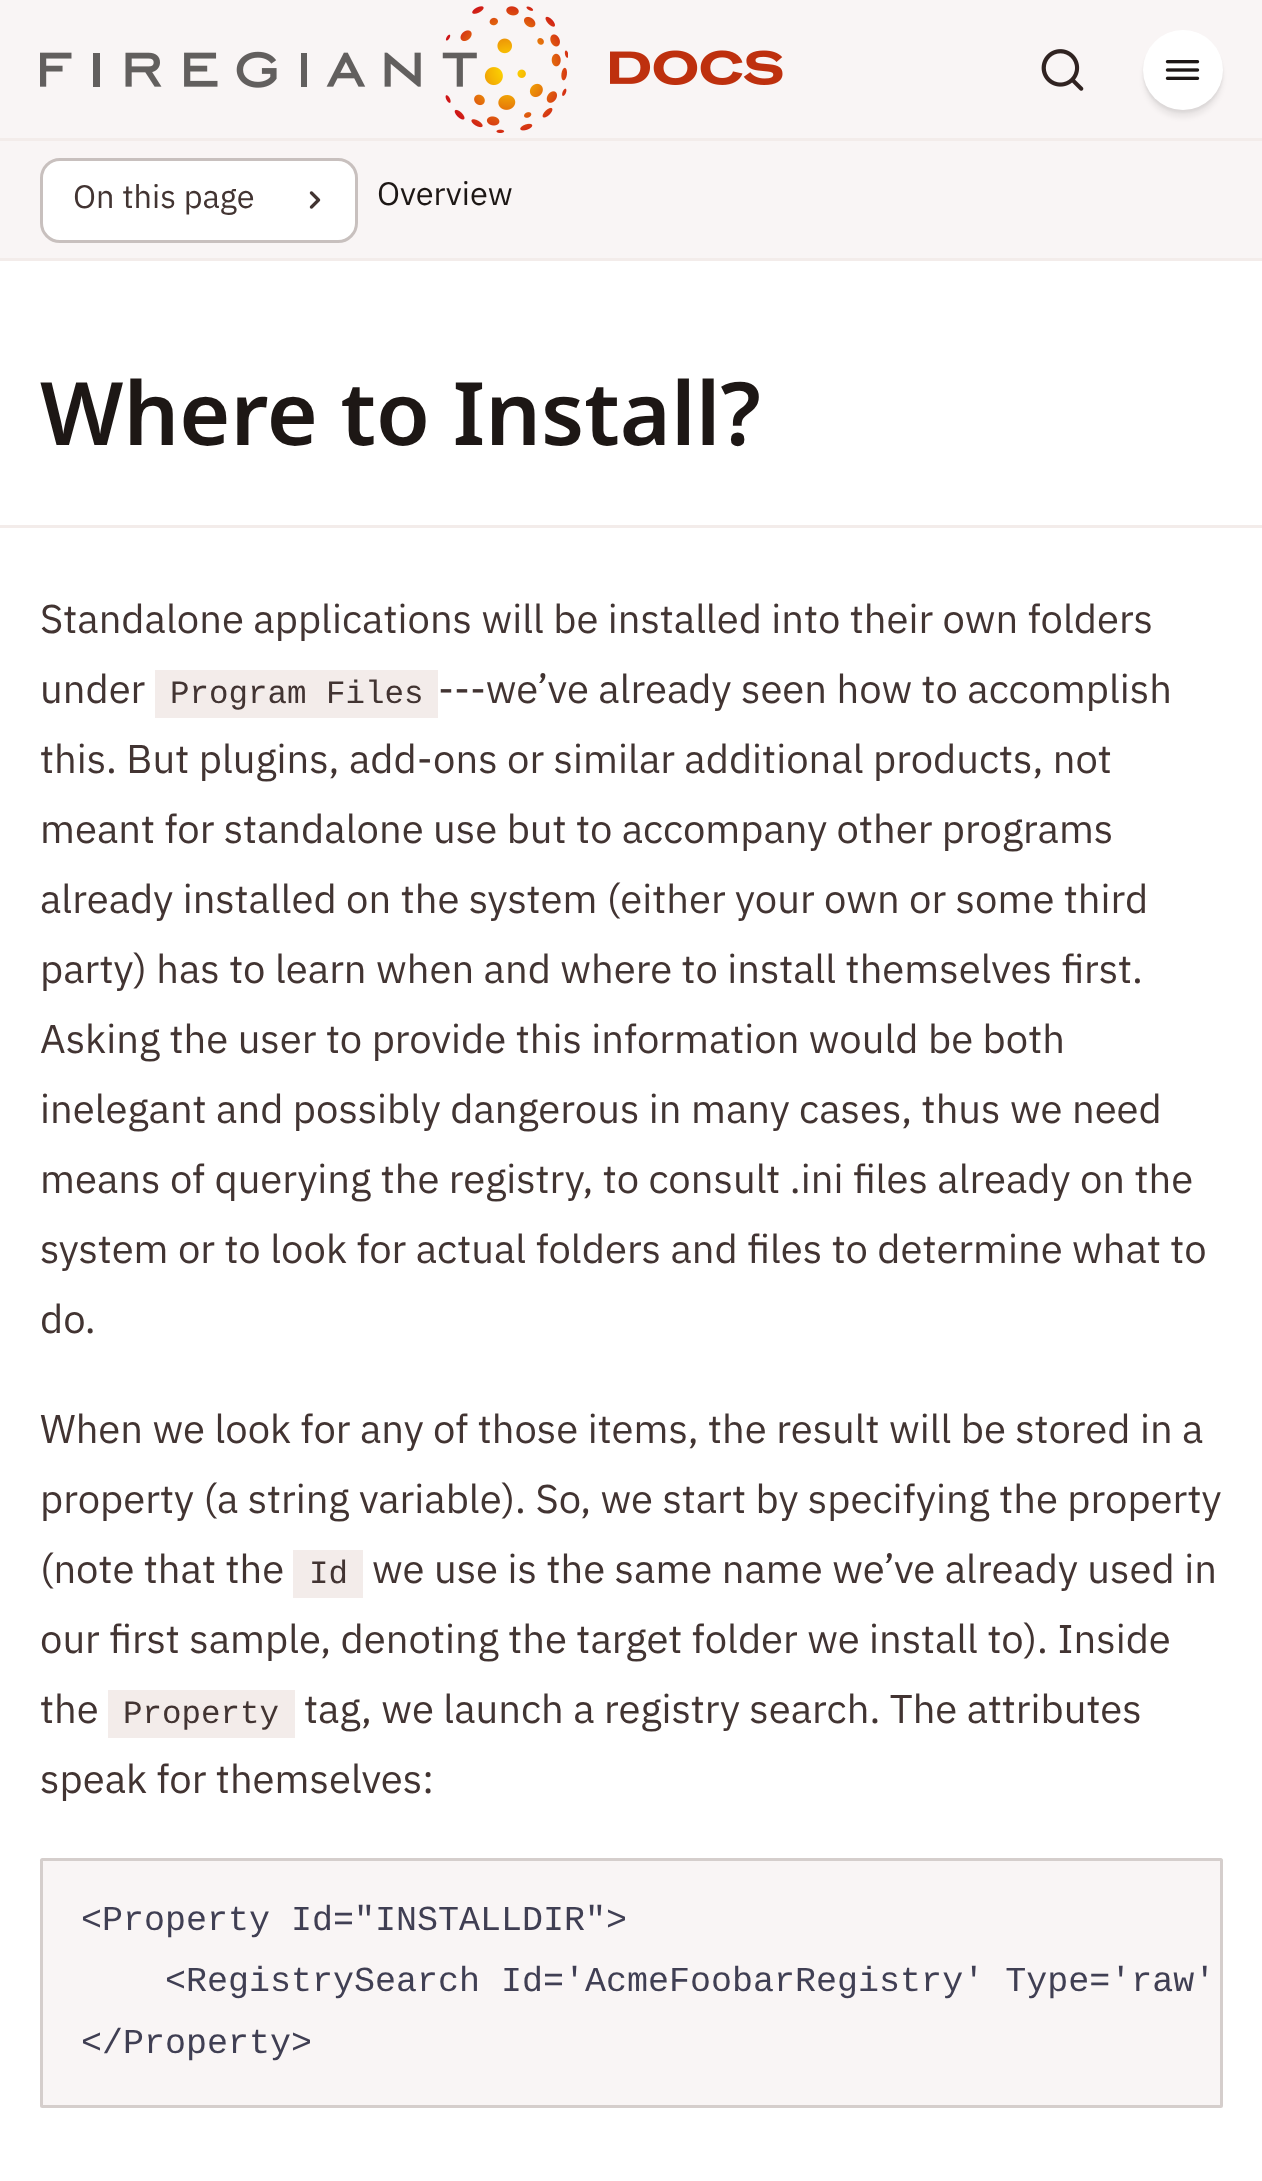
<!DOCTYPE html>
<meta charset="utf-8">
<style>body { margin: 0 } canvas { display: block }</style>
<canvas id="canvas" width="1262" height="2181"></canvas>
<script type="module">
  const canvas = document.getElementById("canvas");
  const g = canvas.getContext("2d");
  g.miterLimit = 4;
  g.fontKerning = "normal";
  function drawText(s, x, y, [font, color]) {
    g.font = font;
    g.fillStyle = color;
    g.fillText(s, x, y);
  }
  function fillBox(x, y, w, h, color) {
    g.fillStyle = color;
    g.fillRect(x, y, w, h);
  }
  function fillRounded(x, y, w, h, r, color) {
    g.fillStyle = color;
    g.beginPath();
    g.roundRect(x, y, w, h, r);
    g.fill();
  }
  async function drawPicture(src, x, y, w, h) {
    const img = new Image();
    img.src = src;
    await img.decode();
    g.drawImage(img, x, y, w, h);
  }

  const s1 = ["32.5px IBM Plex Sans", "#423432"];
  const s2 = ["32.5px IBM Plex Sans", "#1D1715"];
  const s3 = ["600 87.5px Noto Sans", "#1D1715"];
  const s4 = ["40px IBM Plex Sans", "#423432"];
  const s5 = ["32.5px Liberation Mono", "#423432"];
  const s6 = ["35px Liberation Mono", "#403F53"];

  fillBox(0, 0, 1262, 2181, "#FFFFFF");
  fillBox(0, 0, 1262, 138, "#F9F5F5");
  fillBox(0, 138, 1262, 3, "#F3ECEA");
  await drawPicture("pic1.png", 40, 6, 528, 127);
  await drawPicture("pic2.png", 610, 50, 173, 35);
  await drawPicture("pic3.png", 1041, 49, 43, 42);
  g.fillStyle = "rgba(0, 0, 0, 0.06)";
  g.filter = "blur(1px)";
  g.beginPath();
  g.roundRect(1143, 33, 80, 80, 40);
  g.fill();
  g.filter = "none";
  g.filter = "blur(2.5px)";
  g.beginPath();
  g.roundRect(1143, 38, 80, 80, 40);
  g.fill();
  g.filter = "none";
  g.fillStyle = "#FFFFFF";
  g.beginPath();
  g.arc(1183, 70, 40, 0, Math.PI * 2);
  g.fill();
  await drawPicture("pic4.png", 1165, 60, 35, 20);
  fillBox(0, 141, 1262, 117, "#F9F5F5");
  fillBox(0, 258, 1262, 3, "#F3ECEA");
  g.fillStyle = "#FFFFFF";
  g.beginPath();
  g.roundRect(41.5, 159.5, 315, 82, 18.5);
  g.fill();
  g.strokeStyle = "#C8C0BE";
  g.lineWidth = 3;
  g.stroke();
  drawText("On this page", 73, 208, s1);
  await drawPicture("pic5.png", 309, 191, 12, 18);
  drawText("Overview", 377, 205, s2);
  drawText("Where to Install?", 40, 445, s3);
  fillBox(0, 525, 1262, 3, "#F3ECEA");
  drawText("Standalone applications will be installed into their own folders", 40, 633, s4);
  drawText("under", 40, 703, s4);
  fillBox(155, 670, 283, 48, "#F3ECEA");
  drawText("Program Files", 170, 703, s5);
  drawText("---we’ve already seen how to accomplish", 438, 703, s4);
  drawText("this. But plugins, add-ons or similar additional products, not", 40, 773, s4);
  drawText("meant for standalone use but to accompany other programs", 40, 843, s4);
  drawText("already installed on the system (either your own or some third", 40, 913, s4);
  drawText("party) has to learn when and where to install themselves first.", 40, 983, s4);
  drawText("Asking the user to provide this information would be both", 40, 1053, s4);
  drawText("inelegant and possibly dangerous in many cases, thus we need", 40, 1123, s4);
  drawText("means of querying the registry, to consult .ini files already on the", 40, 1193, s4);
  drawText("system or to look for actual folders and files to determine what to", 40, 1263, s4);
  drawText("do.", 40, 1333, s4);
  drawText("When we look for any of those items, the result will be stored in a", 40, 1443, s4);
  drawText("property (a string variable). So, we start by specifying the property", 40, 1513, s4);
  drawText("(note that the", 40, 1583, s4);
  fillBox(293, 1550, 70, 48, "#F3ECEA");
  drawText("Id", 309, 1583, s5);
  drawText("we use is the same name we’ve already used in", 372, 1583, s4);
  drawText("our first sample, denoting the target folder we install to). Inside", 40, 1653, s4);
  drawText("the", 40, 1723, s4);
  fillBox(108, 1690, 187, 48, "#F3ECEA");
  drawText("Property", 123, 1723, s5);
  drawText("tag, we launch a registry search. The attributes", 304, 1723, s4);
  drawText("speak for themselves:", 40, 1793, s4);
  fillRounded(40, 1858, 1183, 250, 2.5, "#F9F5F5");
  g.beginPath();
  g.roundRect(41.5, 1859.5, 1180, 247, 1);
  g.strokeStyle = "rgba(200, 192, 190, 0.75)";
  g.stroke();
  drawText("<Property Id=\"INSTALLDIR\">", 81, 1930, s6);
  drawText("<RegistrySearch Id='AcmeFoobarRegistry' Type='raw'", 165, 1991, s6);
  drawText("<\/Property>", 81, 2053, s6);
</script>
